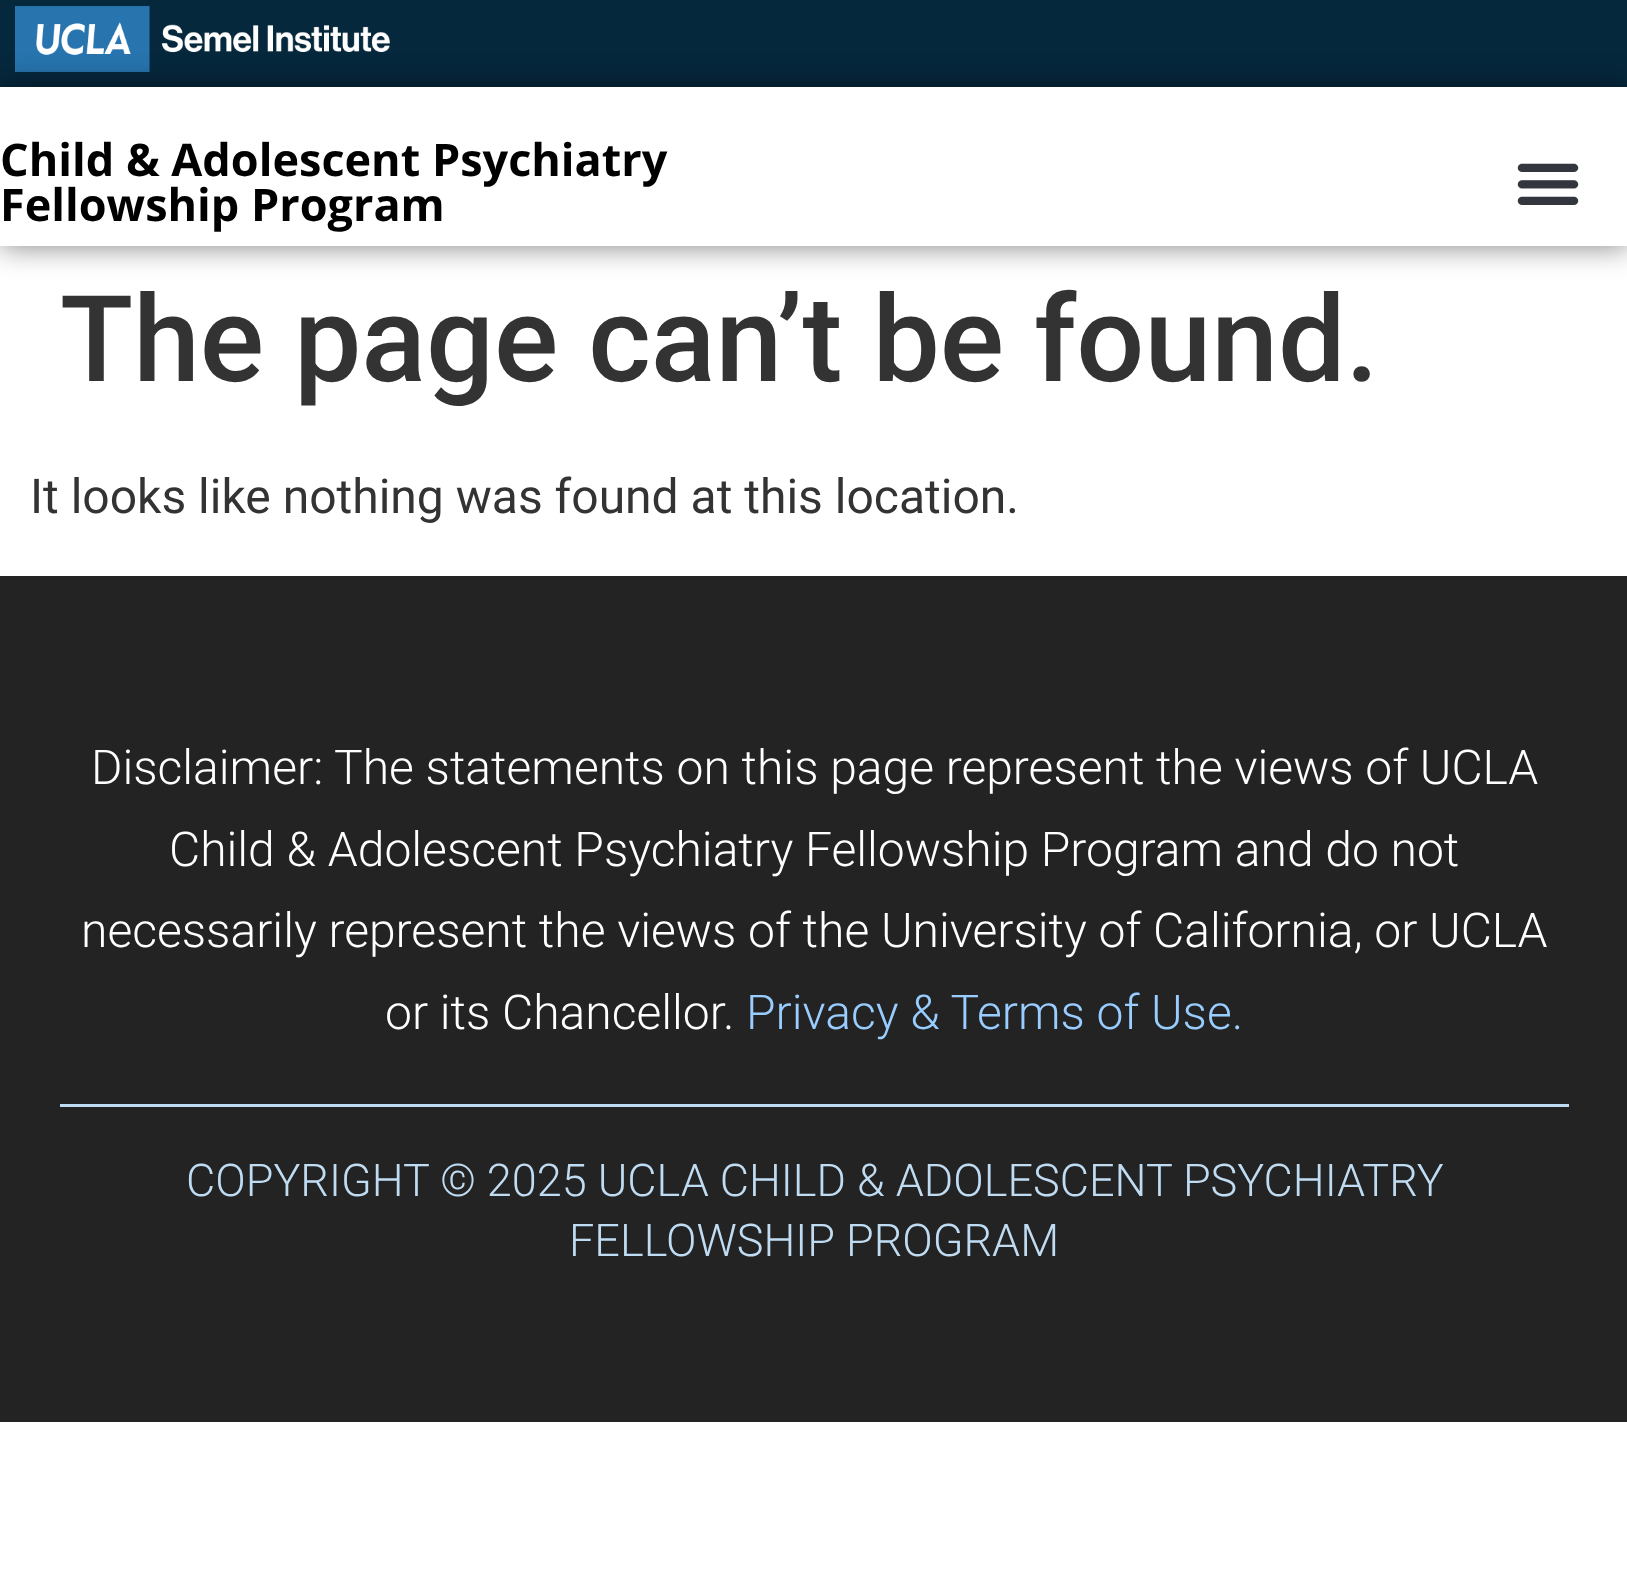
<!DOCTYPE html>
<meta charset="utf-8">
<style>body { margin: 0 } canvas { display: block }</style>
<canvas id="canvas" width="1627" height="1596"></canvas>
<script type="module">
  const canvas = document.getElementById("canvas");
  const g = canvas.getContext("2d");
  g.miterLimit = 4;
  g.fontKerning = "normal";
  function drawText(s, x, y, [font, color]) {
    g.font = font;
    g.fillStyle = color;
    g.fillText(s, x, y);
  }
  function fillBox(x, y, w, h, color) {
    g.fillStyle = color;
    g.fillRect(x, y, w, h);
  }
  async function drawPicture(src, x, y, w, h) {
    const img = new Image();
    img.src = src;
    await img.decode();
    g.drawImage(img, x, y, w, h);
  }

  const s1 = ["bold 45px Open Sans", "#000000"];
  const s2 = ["500 120px Roboto", "#333333"];
  const s3 = ["48px Roboto", "#333333"];
  const s4 = ["300 48px Roboto", "#FFFFFF"];
  const s5 = ["300 48px Roboto", "#99CCFF"];
  const s6 = ["300 45px Roboto", "#C0DCF3"];

  fillBox(0, 0, 1627, 1596, "#FFFFFF");
  fillBox(0, 0, 1627, 87, "#06283D");
  await drawPicture("pic1.png", 15, 6, 375, 66);
  g.save();
  g.beginPath();
  g.moveTo(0, 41);
  g.lineTo(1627, 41);
  g.lineTo(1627, 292);
  g.lineTo(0, 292);
  g.closePath();
  g.moveTo(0, 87);
  g.lineTo(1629, 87);
  g.lineTo(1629, 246);
  g.lineTo(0, 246);
  g.closePath();
  g.clip("evenodd");
  g.fillStyle = "rgba(0, 0, 0, 0.5)";
  g.filter = "blur(15px)";
  g.beginPath();
  g.rect(0, 87, 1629, 159);
  g.fill();
  g.filter = "none";
  g.restore();
  drawText("Child & Adolescent Psychiatry", 0, 176, s1);
  drawText("Fellowship Program", 0, 221, s1);
  await drawPicture("pic2.png", 1517, 163, 62, 42);
  drawText("The page can’t be found.", 60, 381, s2);
  drawText("It looks like nothing was found at this location.", 30, 513, s3);
  fillBox(0, 576, 1627, 846, "#232323");
  drawText("Disclaimer: The statements on this page represent the views of UCLA", 91, 784, s4);
  drawText("Child & Adolescent Psychiatry Fellowship Program and do not", 169, 866, s4);
  drawText("necessarily represent the views of the University of California, or UCLA", 81, 947, s4);
  drawText("or its Chancellor.", 385, 1029, s4);
  drawText("Privacy & Terms of Use.", 746, 1029, s5);
  fillBox(60, 1104, 1509, 3, "#C0DCF3");
  drawText("COPYRIGHT © 2025 UCLA CHILD & ADOLESCENT PSYCHIATRY", 186, 1196, s6);
  drawText("FELLOWSHIP PROGRAM", 569, 1256, s6);
</script>
